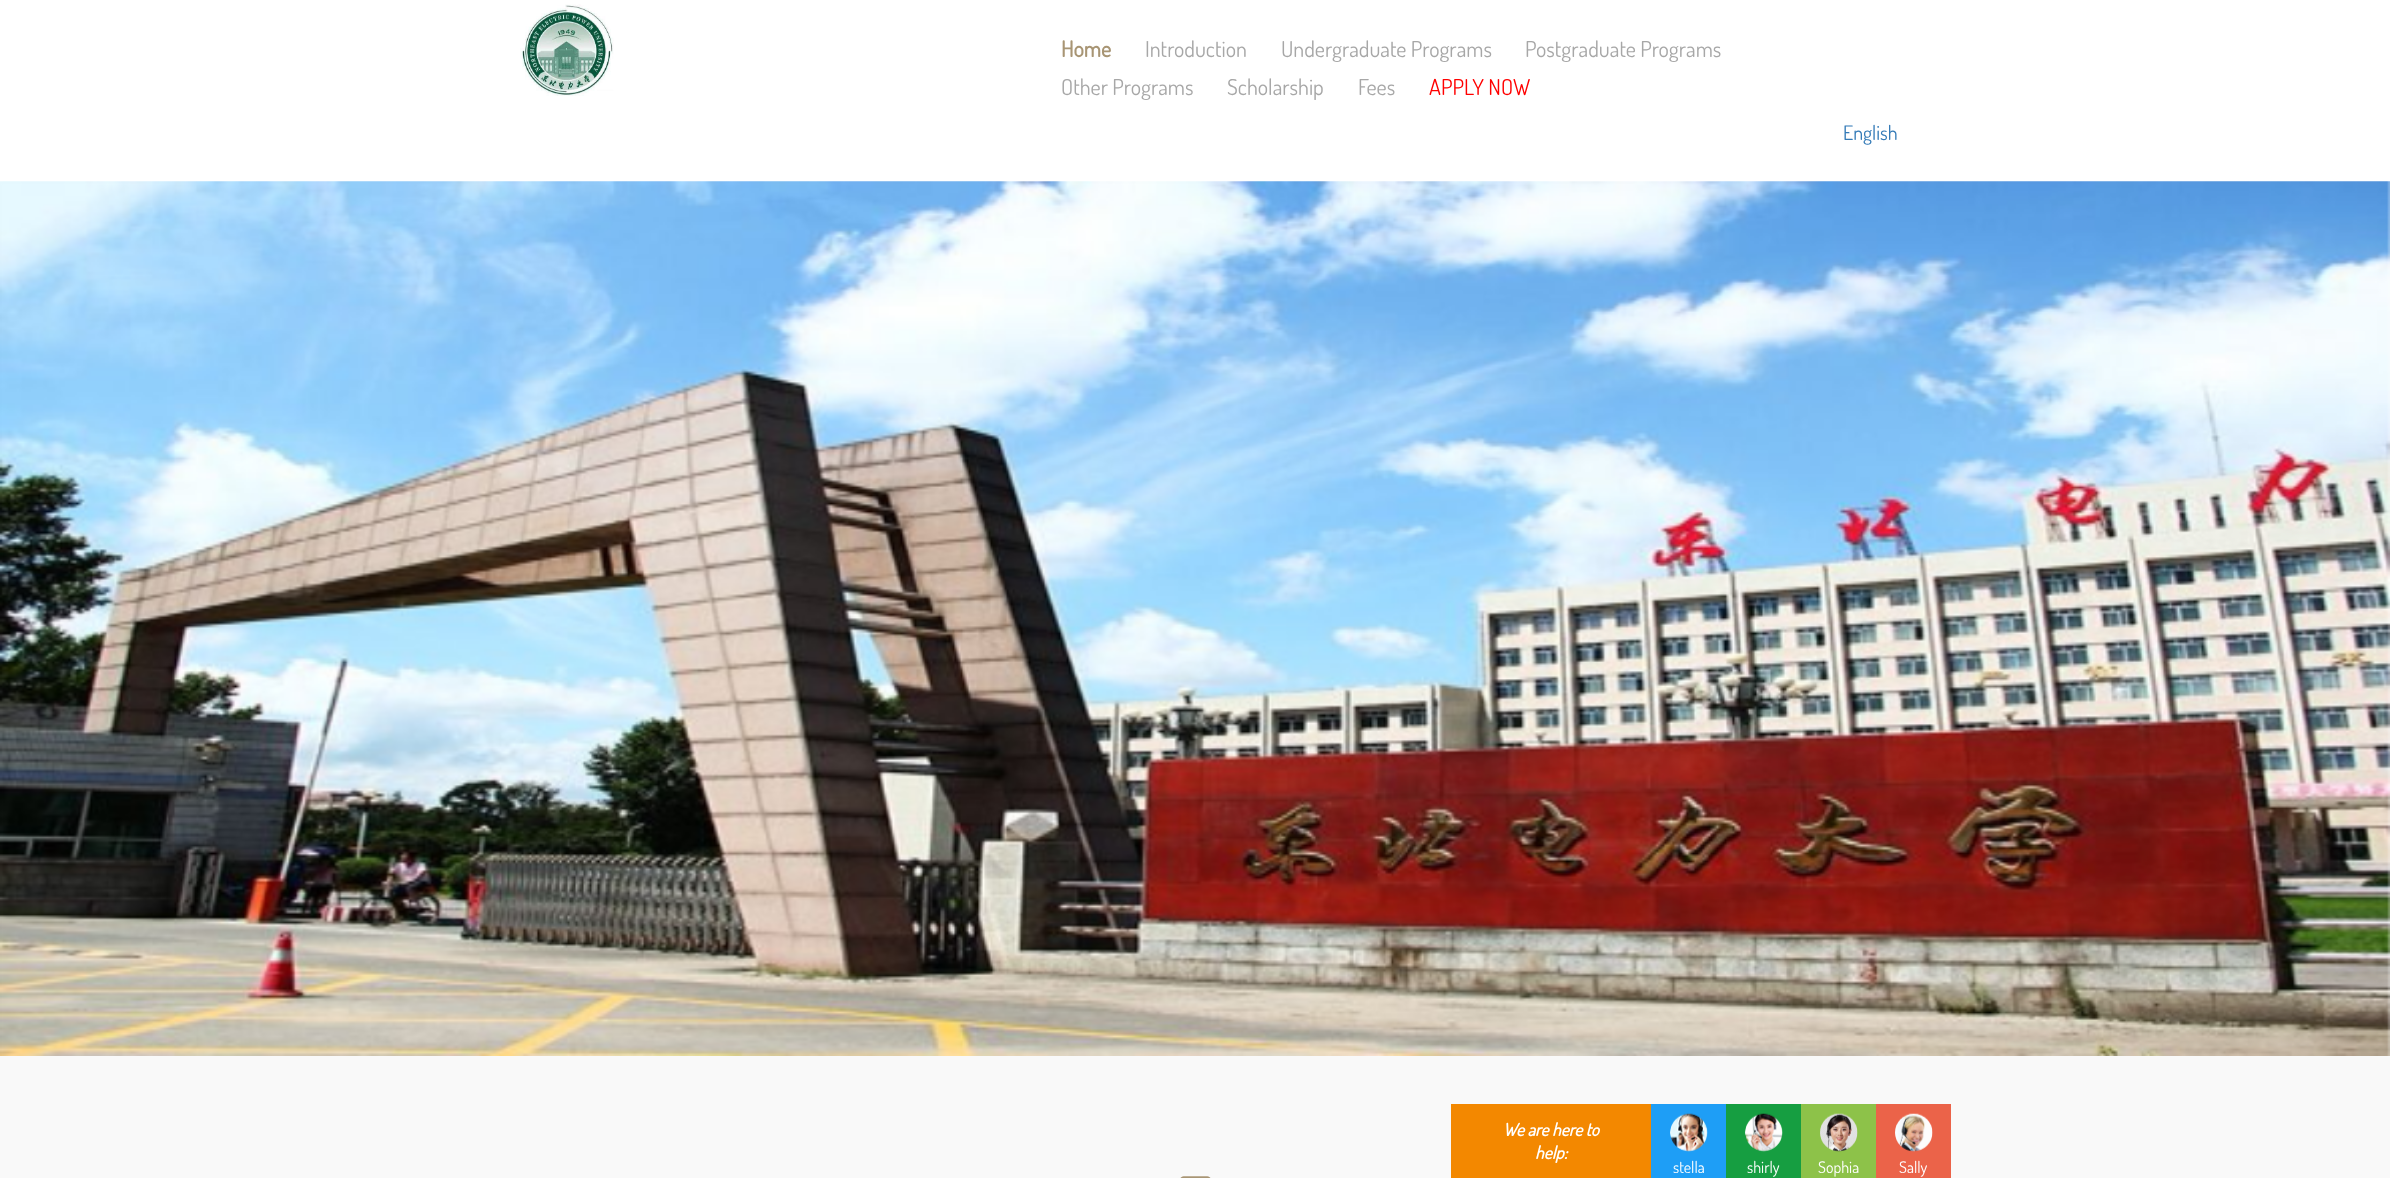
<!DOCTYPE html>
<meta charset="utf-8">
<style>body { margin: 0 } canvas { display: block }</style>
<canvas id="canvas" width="2390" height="1178"></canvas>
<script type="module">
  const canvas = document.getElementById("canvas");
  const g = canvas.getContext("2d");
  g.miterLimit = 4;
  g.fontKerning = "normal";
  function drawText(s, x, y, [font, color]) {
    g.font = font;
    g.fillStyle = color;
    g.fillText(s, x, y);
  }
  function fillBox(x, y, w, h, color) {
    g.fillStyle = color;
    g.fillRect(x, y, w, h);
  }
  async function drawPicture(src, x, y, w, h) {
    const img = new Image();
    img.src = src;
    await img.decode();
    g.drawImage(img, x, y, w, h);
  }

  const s1 = ["bold 22px Dosis", "#A89574"];
  const s2 = ["22px Dosis", "#A7A7A7"];
  const s3 = ["22px Dosis", "#FF0000"];
  const s4 = ["20px Dosis", "#337AB7"];
  const s5 = ["italic bold 17.5px Dosis", "#FFFFFF"];
  const s6 = ["16px Dosis", "#FFFFFF"];

  fillBox(0, 0, 2390, 1178, "#FFFFFF");
  await drawPicture("pic1.png", 520, 4, 94, 92);
  drawText("Home", 1061, 57, s1);
  drawText("Introduction", 1145, 57, s2);
  drawText("Undergraduate Programs", 1281, 57, s2);
  drawText("Postgraduate Programs", 1525, 57, s2);
  drawText("Other Programs", 1061, 95, s2);
  drawText("Scholarship", 1227, 95, s2);
  drawText("Fees", 1358, 95, s2);
  drawText("APPLY NOW", 1429, 95, s3);
  drawText("English", 1843, 140, s4);
  await drawPicture("pic2.png", 0, 181, 2390, 875);
  fillBox(0, 1056, 2390, 122, "#F9F9F9");
  await drawPicture("pic3.png", 1180, 1176, 31, 2);
  fillBox(1451, 1104, 200, 74, "#F38800");
  drawText("We are here to", 1503, 1136, s5);
  drawText("help:", 1535, 1159, s5);
  fillBox(1651, 1104, 75, 74, "#1E9EF6");
  await drawPicture("pic4.png", 1670, 1113, 38, 39);
  drawText("stella", 1673, 1173, s6);
  fillBox(1726, 1104, 75, 74, "#169E41");
  await drawPicture("pic5.png", 1745, 1113, 38, 39);
  drawText("shirly", 1747, 1173, s6);
  fillBox(1801, 1104, 75, 74, "#8DC249");
  await drawPicture("pic6.png", 1820, 1113, 38, 39);
  drawText("Sophia", 1818, 1173, s6);
  fillBox(1876, 1104, 75, 74, "#EB6349");
  await drawPicture("pic7.png", 1895, 1113, 38, 39);
  drawText("Sally", 1899, 1173, s6);
</script>
